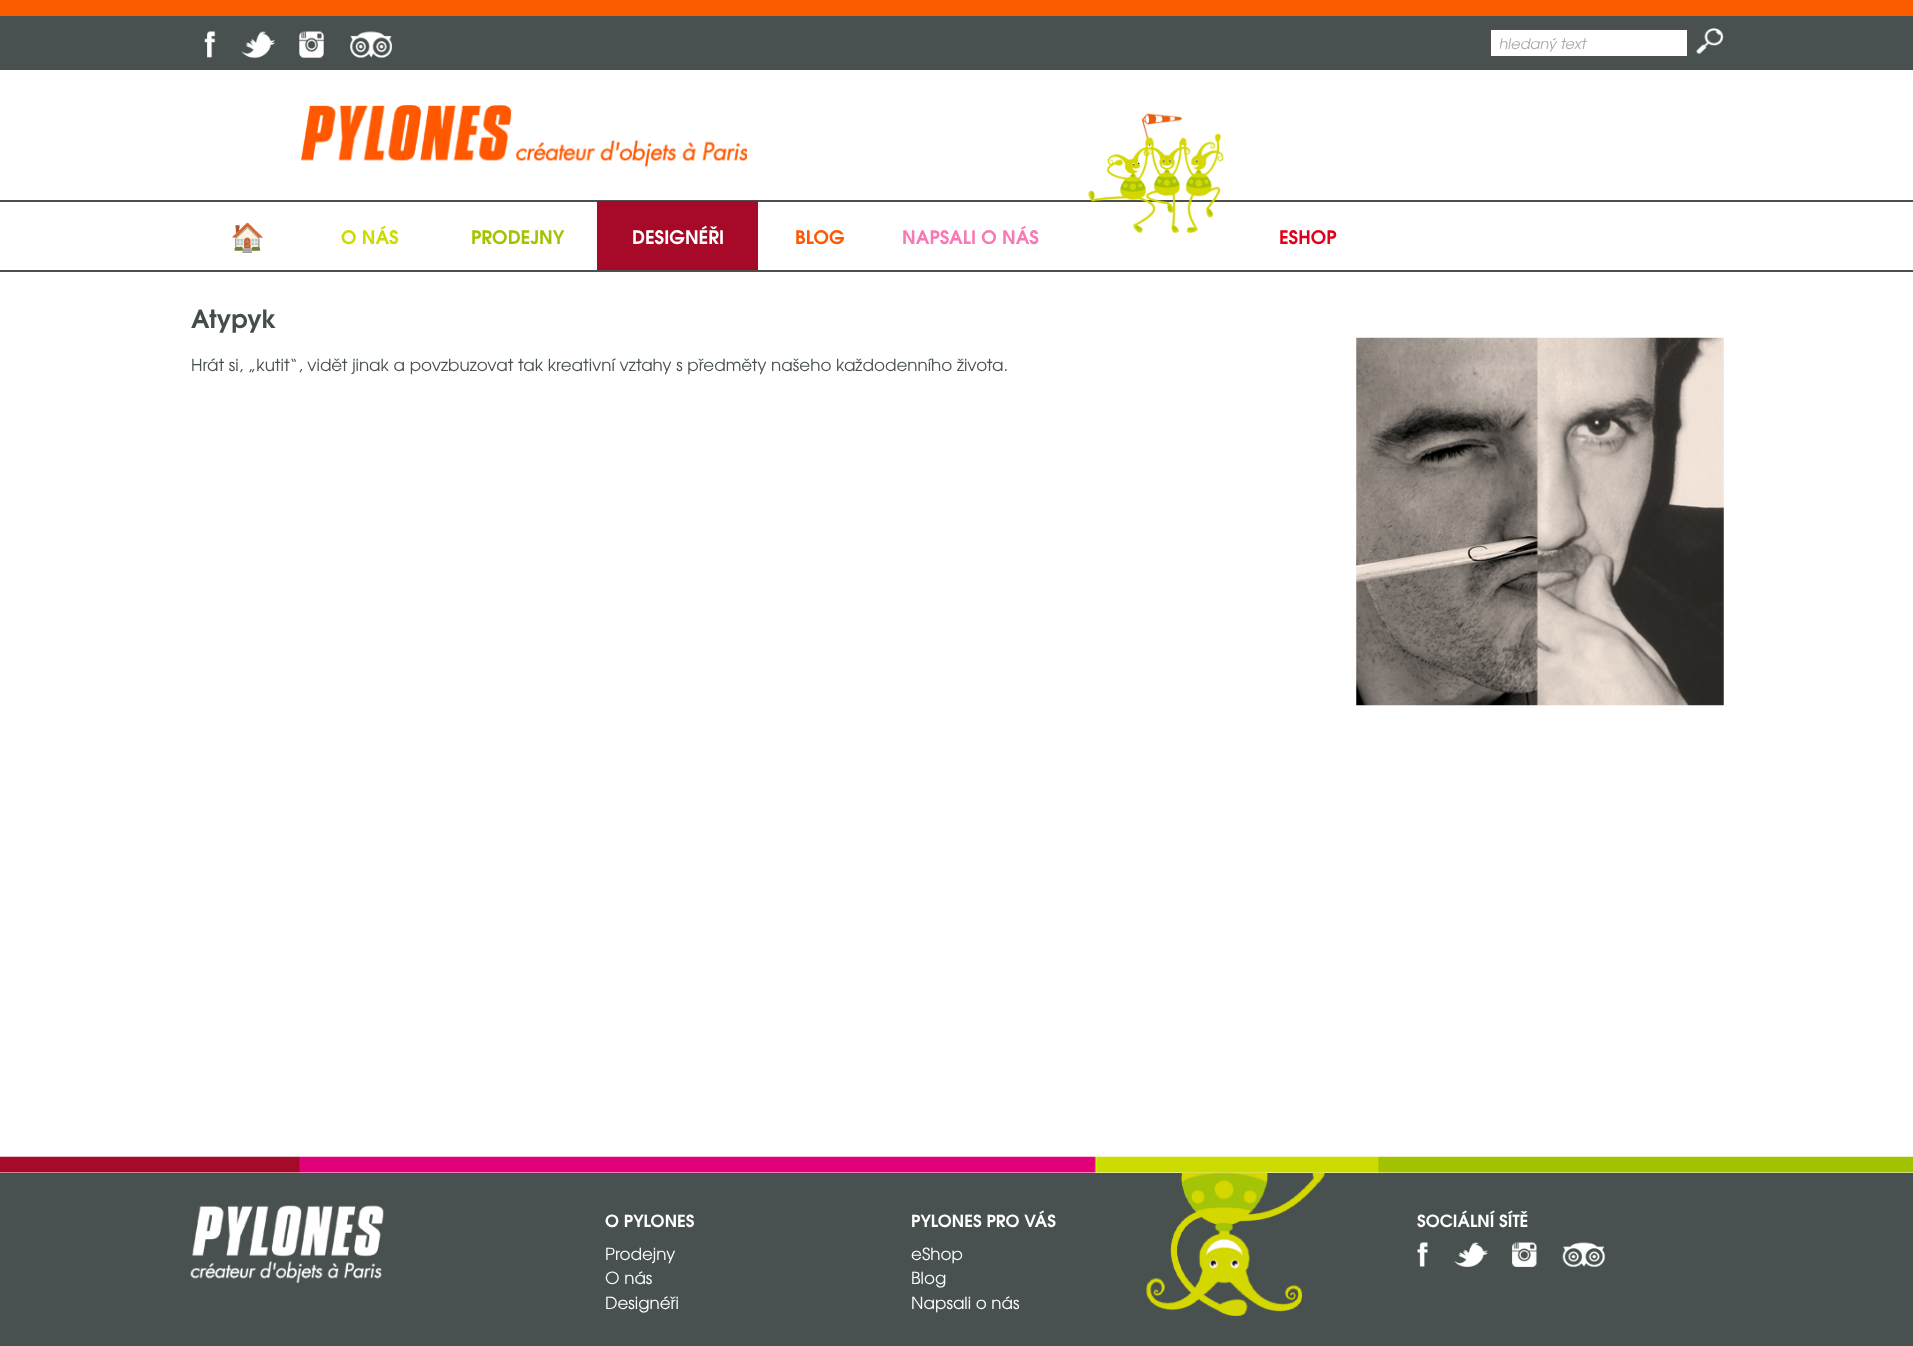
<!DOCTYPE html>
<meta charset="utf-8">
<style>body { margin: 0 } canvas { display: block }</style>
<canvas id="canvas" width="1913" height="1346"></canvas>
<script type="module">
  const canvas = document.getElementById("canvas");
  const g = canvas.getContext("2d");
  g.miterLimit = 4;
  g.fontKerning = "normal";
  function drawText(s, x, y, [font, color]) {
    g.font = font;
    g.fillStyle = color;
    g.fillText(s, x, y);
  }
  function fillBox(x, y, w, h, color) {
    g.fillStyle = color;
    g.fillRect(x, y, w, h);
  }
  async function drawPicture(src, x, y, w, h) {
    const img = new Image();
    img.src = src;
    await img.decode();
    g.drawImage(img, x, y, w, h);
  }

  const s1 = ["italic 14.5px TeX Gyre Adventor", "#AAAAAA"];
  const s2 = ["bold 28px Noto Color Emoji", "#A3004F"];
  const s3 = ["bold 18.5px TeX Gyre Adventor", "#CCDC00"];
  const s4 = ["bold 18.5px TeX Gyre Adventor", "#A3C300"];
  const s5 = ["bold 18.5px TeX Gyre Adventor", "#FFFFFF"];
  const s6 = ["bold 18.5px TeX Gyre Adventor", "#FF5800"];
  const s7 = ["bold 18.5px TeX Gyre Adventor", "#F77AB4"];
  const s8 = ["bold 18.5px TeX Gyre Adventor", "#E0001A"];
  const s9 = ["bold 25px TeX Gyre Adventor", "#434E4A"];
  const s10 = ["16.75px TeX Gyre Adventor", "#485150"];
  const s11 = ["bold 16.75px TeX Gyre Adventor", "#FFFFFF"];
  const s12 = ["16.75px TeX Gyre Adventor", "#FFFFFF"];

  fillBox(0, 0, 1913, 1346, "#FFFFFF");
  fillBox(0, 0, 1913, 16, "#FB5C00");
  fillBox(0, 16, 1913, 54, "#485150");
  await drawPicture("pic1.png", 204, 31, 12, 27);
  await drawPicture("pic2.png", 241, 31, 34, 27);
  await drawPicture("pic3.png", 299, 31, 25, 27);
  await drawPicture("pic4.png", 350, 31, 42, 27);
  g.fillStyle = "#FFFFFF";
  g.beginPath();
  g.rect(1490, 29, 198, 28);
  g.fill();
  g.strokeStyle = "#4F4F4F";
  g.lineWidth = 2;
  g.stroke();
  g.save();
  g.beginPath();
  g.rect(1500, 32, 180, 22);
  g.clip();
  drawText("hledaný text", 1499, 49, s1);
  g.restore();
  await drawPicture("pic5.png", 1696, 28, 28, 27);
  await drawPicture("pic6.png", 301, 105, 447, 62);
  fillBox(0, 200, 1913, 2, "#4B4F4E");
  fillBox(0, 270, 1913, 2, "#4B4F4E");
  await drawPicture("pic7.png", 1088, 113, 136, 120);
  drawText("🏠", 230, 247, s2);
  drawText("O NÁS", 341, 244, s3);
  drawText("PRODEJNY", 471, 244, s4);
  fillBox(597, 201, 161, 69, "#A70A29");
  drawText("DESIGNÉŘI", 632, 244, s5);
  drawText("BLOG", 795, 244, s6);
  drawText("NAPSALI O NÁS", 902, 244, s7);
  drawText("ESHOP", 1279, 244, s8);
  drawText("Atypyk", 191, 328, s9);
  drawText("Hrát si, „kutit“, vidět jinak a povzbuzovat tak kreativní vztahy s předměty našeho každodenního života.", 191, 371, s10);
  await drawPicture("pic8.png", 1356, 337, 368, 369);
  await drawPicture("pic9.png", 0, 1156, 1913, 17);
  fillBox(0, 1173, 1913, 173, "#485150");
  await drawPicture("pic10.png", 190, 1205, 194, 78);
  drawText("O PYLONES", 605, 1227, s11);
  drawText("Prodejny", 605, 1260, s12);
  drawText("O nás", 605, 1284, s12);
  drawText("Designéři", 605, 1309, s12);
  drawText("PYLONES PRO VÁS", 911, 1227, s11);
  drawText("eShop", 911, 1260, s12);
  drawText("Blog", 911, 1284, s12);
  drawText("Napsali o nás", 911, 1309, s12);
  await drawPicture("pic11.png", 1146, 1172, 179, 144);
  drawText("SOCIÁLNÍ SÍTĚ", 1417, 1227, s11);
  await drawPicture("pic12.png", 1417, 1242, 11, 25);
  await drawPicture("pic13.png", 1454, 1242, 34, 25);
  await drawPicture("pic14.png", 1512, 1242, 25, 25);
  await drawPicture("pic15.png", 1562, 1242, 43, 25);
</script>
